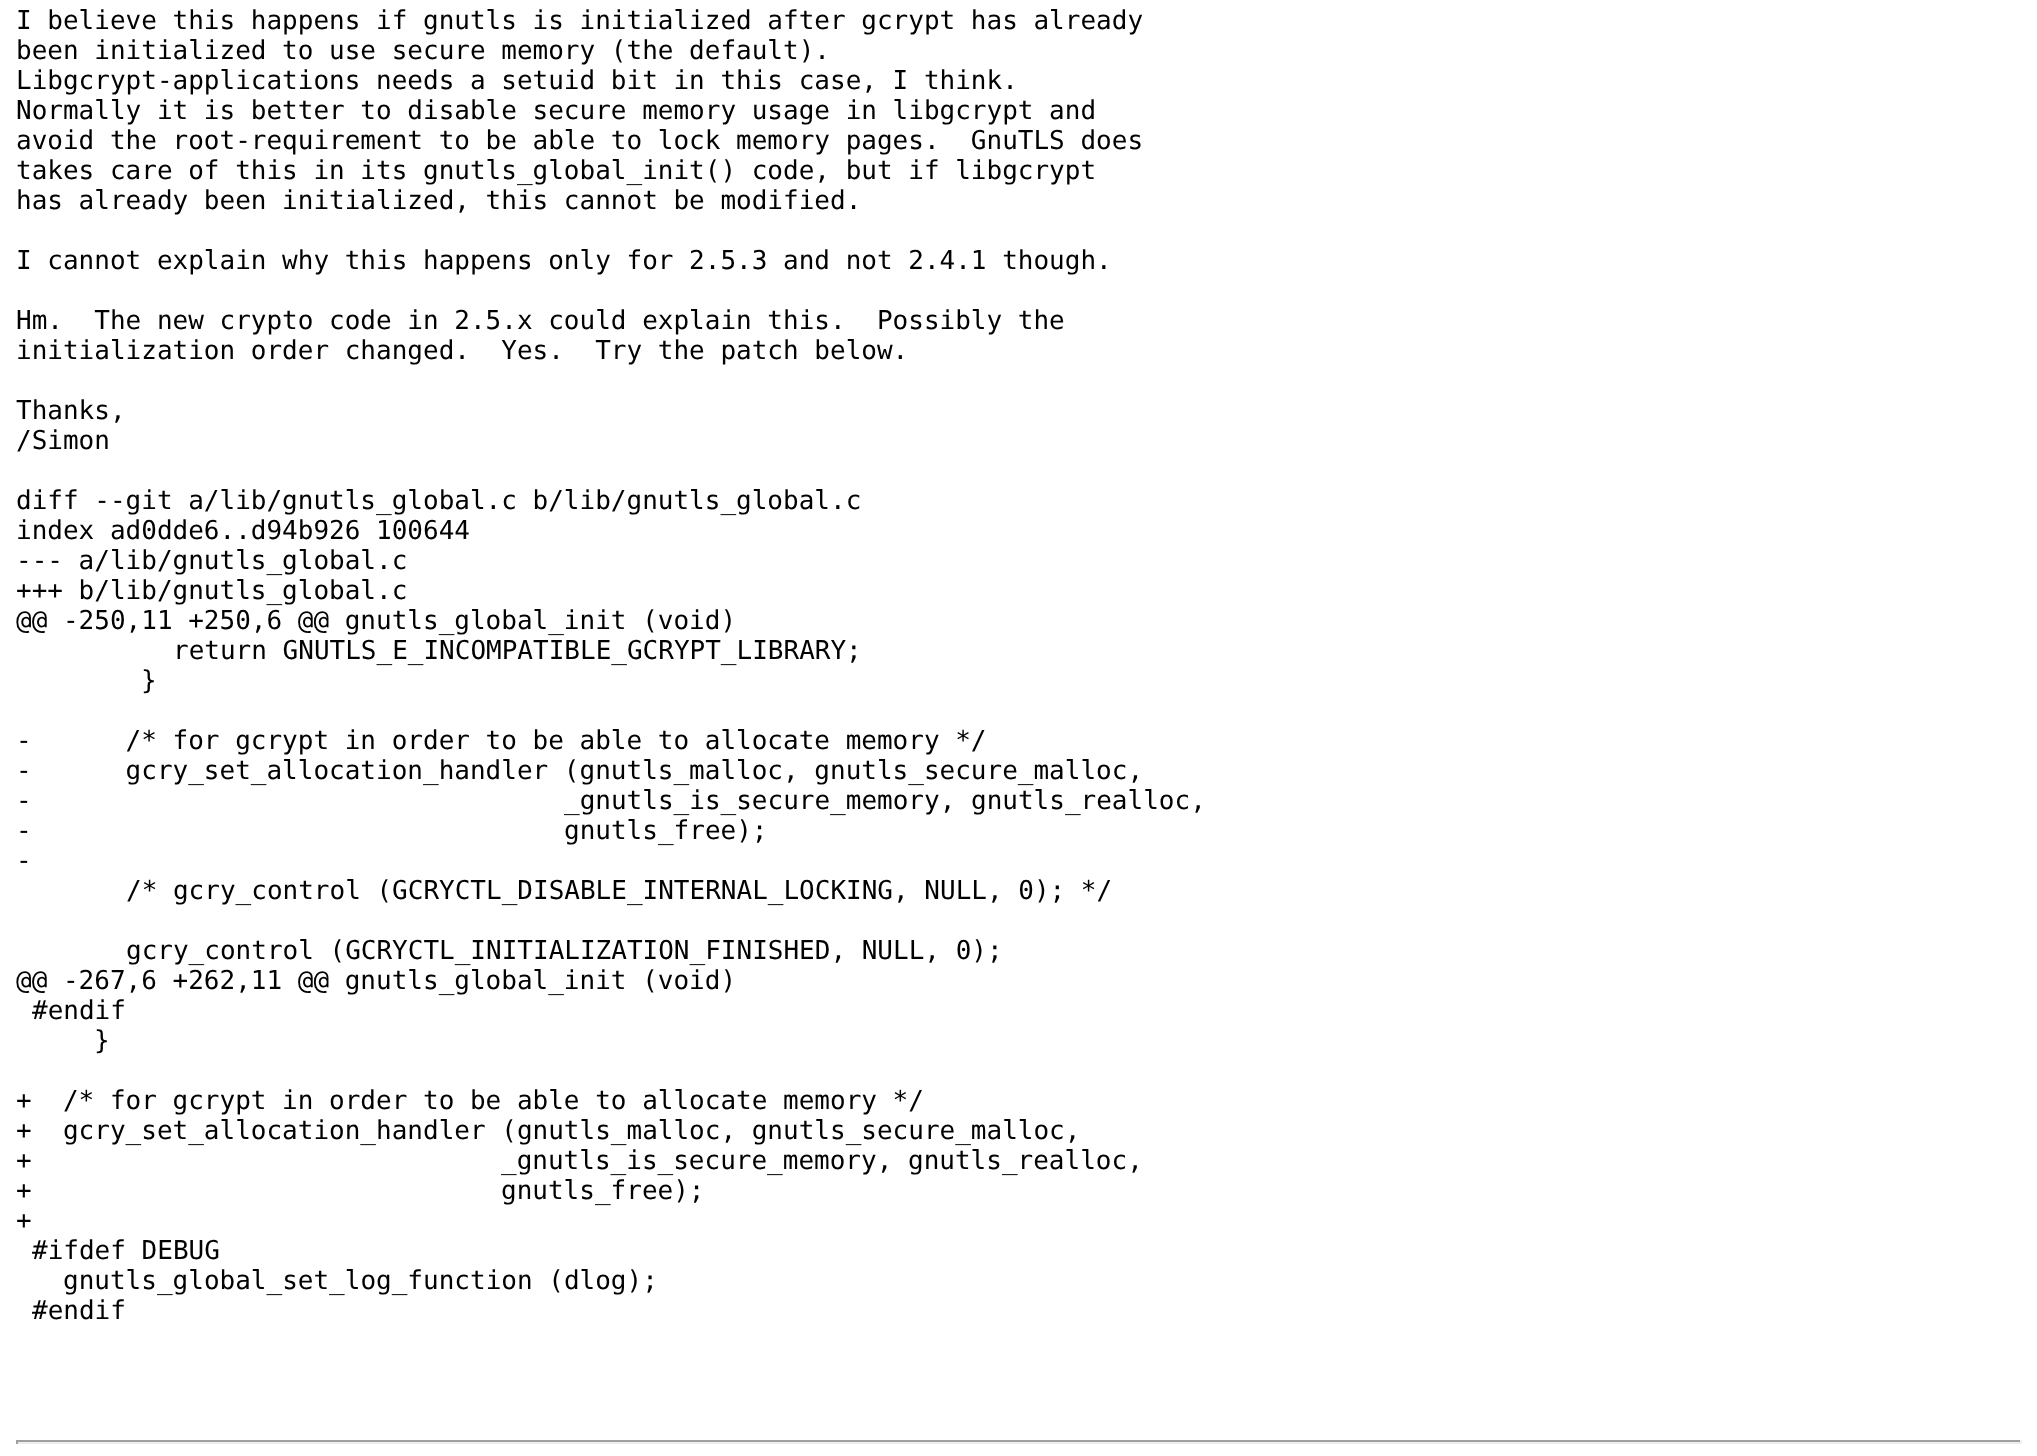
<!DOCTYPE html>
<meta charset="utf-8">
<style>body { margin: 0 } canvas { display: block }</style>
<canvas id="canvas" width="2037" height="1456"></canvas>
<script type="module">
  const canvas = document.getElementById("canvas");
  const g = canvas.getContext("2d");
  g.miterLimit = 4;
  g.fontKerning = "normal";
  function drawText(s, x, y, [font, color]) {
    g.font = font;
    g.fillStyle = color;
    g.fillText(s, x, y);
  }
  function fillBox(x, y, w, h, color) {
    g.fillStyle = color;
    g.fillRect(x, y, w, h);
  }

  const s1 = ["26px DejaVu Sans Mono", "#000000"];

  fillBox(0, 0, 2037, 1456, "#FFFFFF");
  drawText("I believe this happens if gnutls is initialized after gcrypt has already", 16, 29, s1);
  drawText("been initialized to use secure memory (the default).", 16, 59, s1);
  drawText("Libgcrypt-applications needs a setuid bit in this case, I think.", 16, 89, s1);
  drawText("Normally it is better to disable secure memory usage in libgcrypt and", 16, 119, s1);
  drawText("avoid the root-requirement to be able to lock memory pages.  GnuTLS does", 16, 149, s1);
  drawText("takes care of this in its gnutls_global_init() code, but if libgcrypt", 16, 179, s1);
  drawText("has already been initialized, this cannot be modified.", 16, 209, s1);
  drawText("I cannot explain why this happens only for 2.5.3 and not 2.4.1 though.", 16, 269, s1);
  drawText("Hm.  The new crypto code in 2.5.x could explain this.  Possibly the", 16, 329, s1);
  drawText("initialization order changed.  Yes.  Try the patch below.", 16, 359, s1);
  drawText("Thanks,", 16, 419, s1);
  drawText("/Simon", 16, 449, s1);
  drawText("diff --git a/lib/gnutls_global.c b/lib/gnutls_global.c", 16, 509, s1);
  drawText("index ad0dde6..d94b926 100644", 16, 539, s1);
  drawText("--- a/lib/gnutls_global.c", 16, 569, s1);
  drawText("+++ b/lib/gnutls_global.c", 16, 599, s1);
  drawText("@@ -250,11 +250,6 @@ gnutls_global_init (void)", 16, 629, s1);
  drawText("return GNUTLS_E_INCOMPATIBLE_GCRYPT_LIBRARY;", 173, 659, s1);
  drawText("}", 141, 689, s1);
  drawText("-      /* for gcrypt in order to be able to allocate memory */", 16, 749, s1);
  drawText("-      gcry_set_allocation_handler (gnutls_malloc, gnutls_secure_malloc,", 16, 779, s1);
  drawText("-", 16, 809, s1);
  drawText("_gnutls_is_secure_memory, gnutls_realloc,", 564, 809, s1);
  drawText("-", 16, 839, s1);
  drawText("gnutls_free);", 564, 839, s1);
  drawText("-", 16, 869, s1);
  drawText("/* gcry_control (GCRYCTL_DISABLE_INTERNAL_LOCKING, NULL, 0); */", 126, 899, s1);
  drawText("gcry_control (GCRYCTL_INITIALIZATION_FINISHED, NULL, 0);", 126, 959, s1);
  drawText("@@ -267,6 +262,11 @@ gnutls_global_init (void)", 16, 989, s1);
  drawText("#endif", 32, 1019, s1);
  drawText("}", 94, 1049, s1);
  drawText("+  /* for gcrypt in order to be able to allocate memory */", 16, 1109, s1);
  drawText("+  gcry_set_allocation_handler (gnutls_malloc, gnutls_secure_malloc,", 16, 1139, s1);
  drawText("+", 16, 1169, s1);
  drawText("_gnutls_is_secure_memory, gnutls_realloc,", 501, 1169, s1);
  drawText("+", 16, 1199, s1);
  drawText("gnutls_free);", 501, 1199, s1);
  drawText("+", 16, 1229, s1);
  drawText("#ifdef DEBUG", 32, 1259, s1);
  drawText("gnutls_global_set_log_function (dlog);", 63, 1289, s1);
  drawText("#endif", 32, 1319, s1);
  fillBox(16, 1440, 2006, 2, "#9F9F9F");
  fillBox(2020, 1440, 2, 4, "#EEEEEE");
  fillBox(16, 1442, 2006, 2, "#EEEEEE");
  fillBox(16, 1440, 2, 4, "#9F9F9F");
</script>
